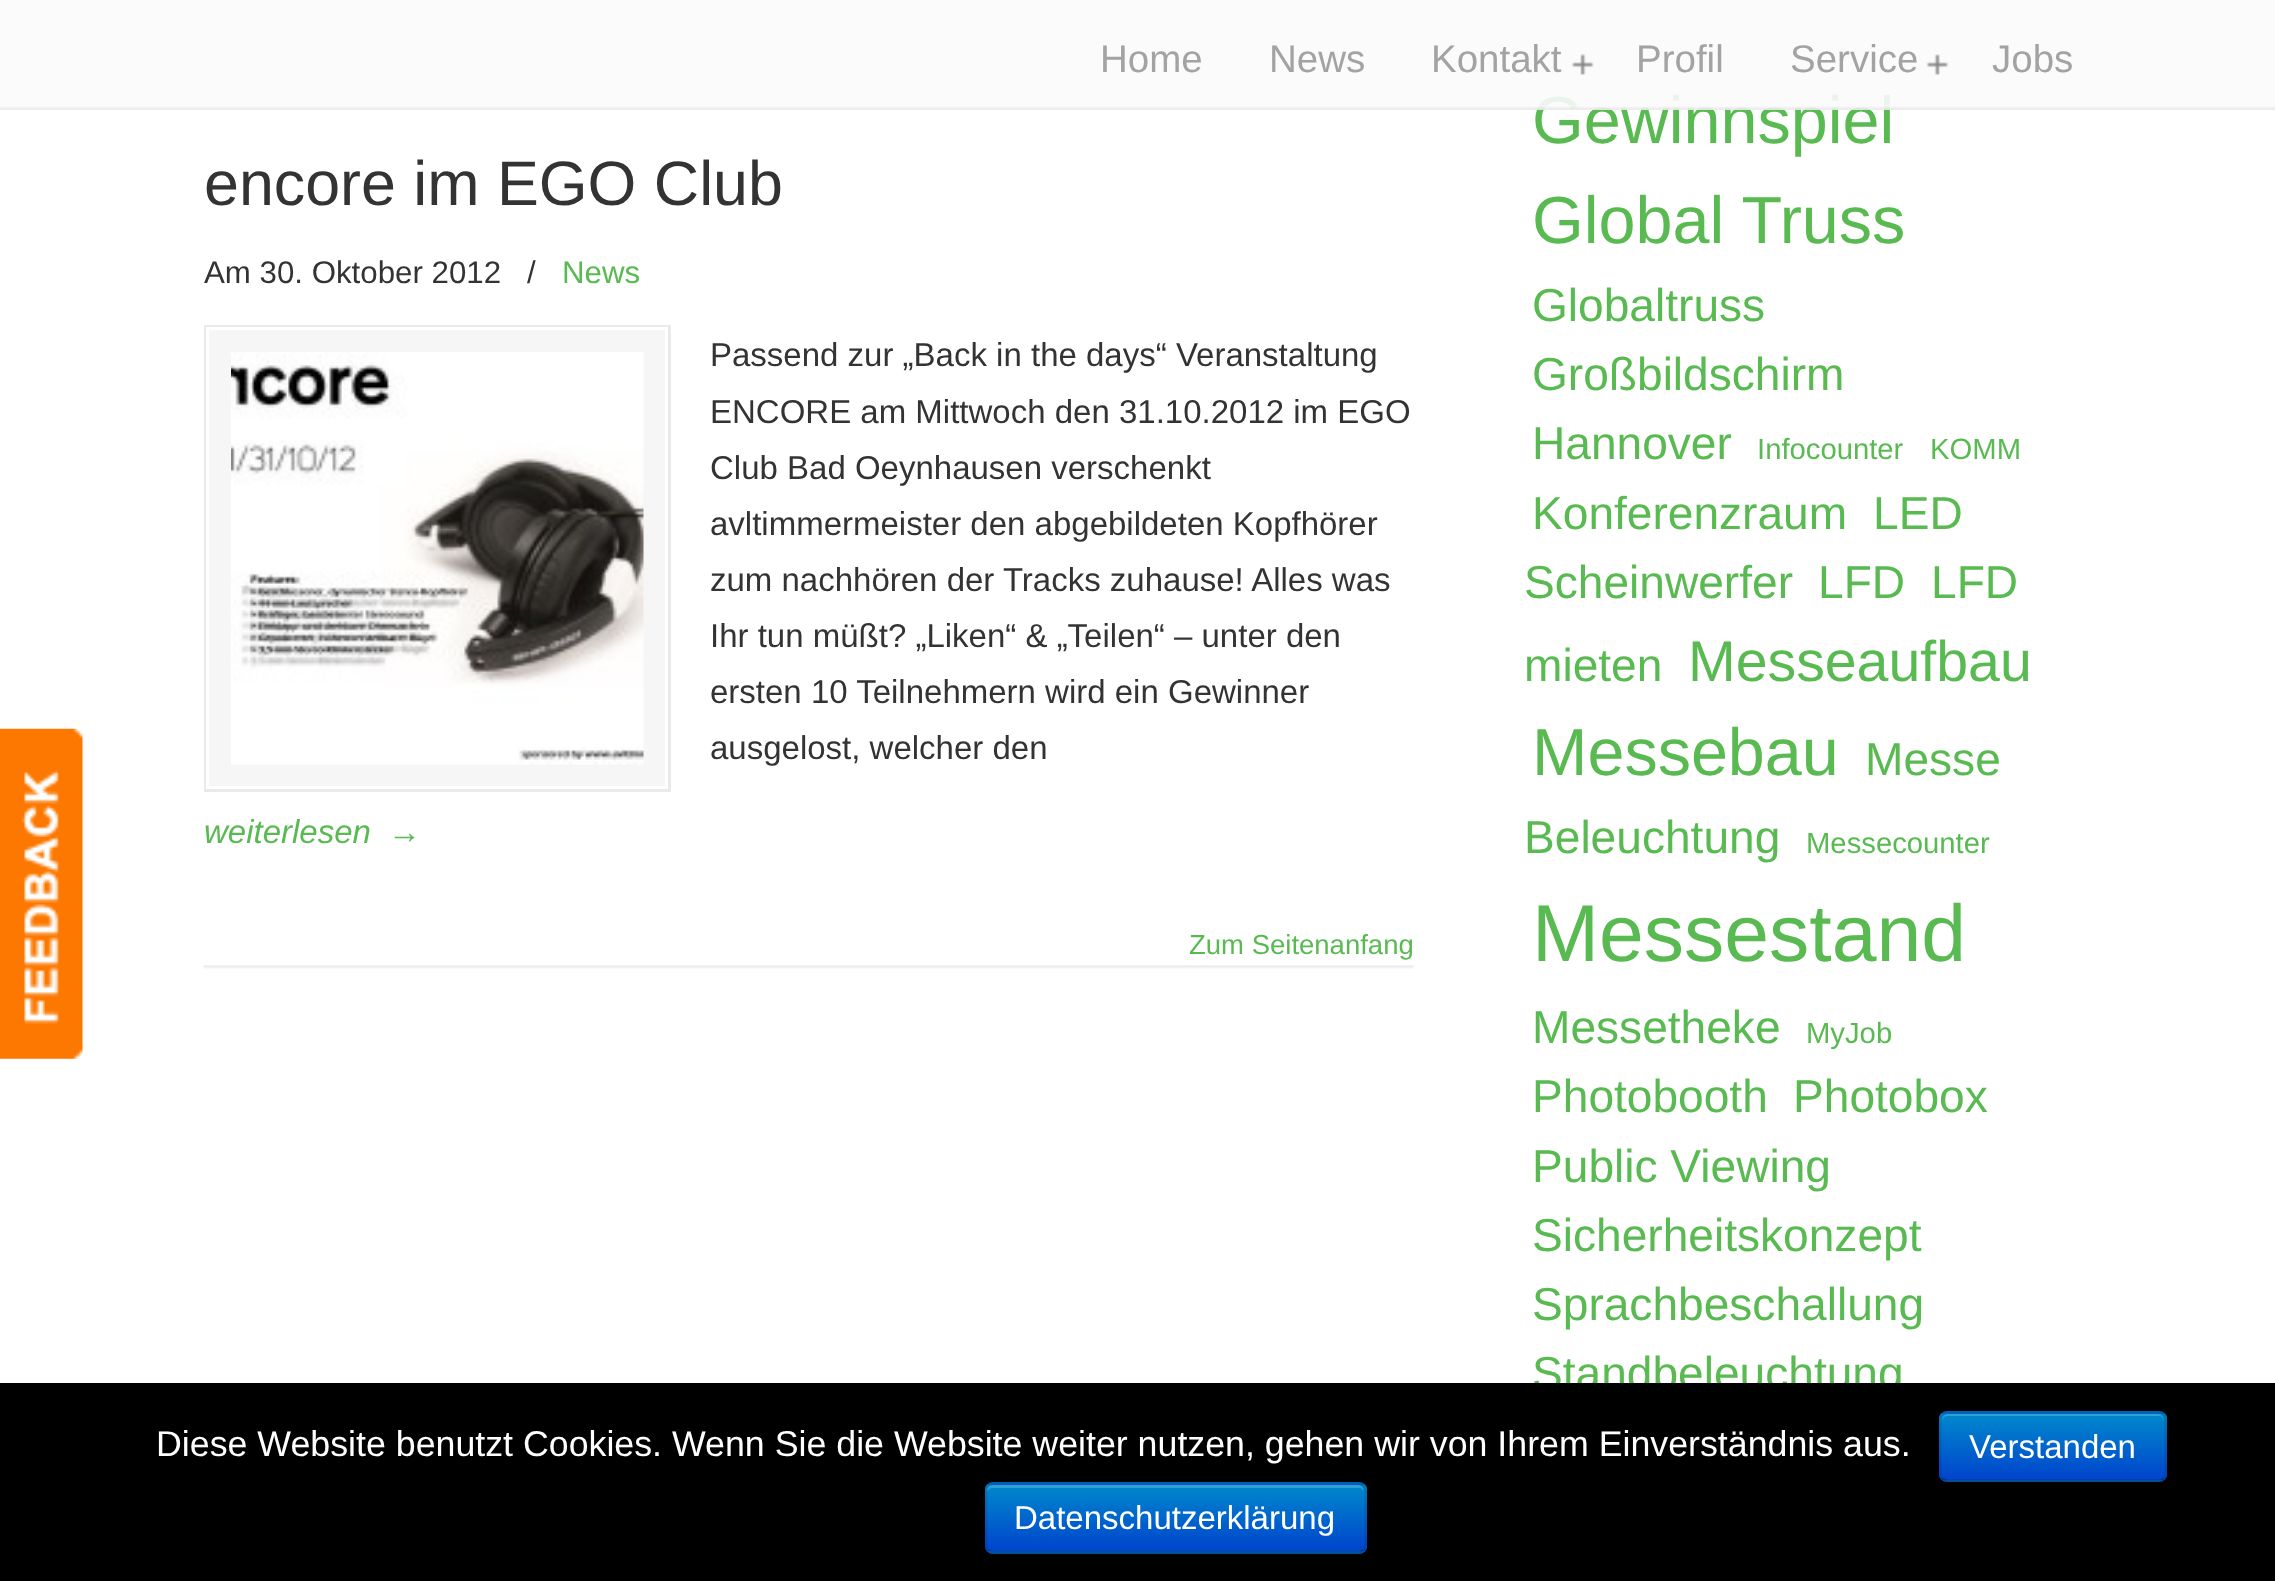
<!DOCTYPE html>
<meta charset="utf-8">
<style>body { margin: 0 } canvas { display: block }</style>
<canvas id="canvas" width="2275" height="1581"></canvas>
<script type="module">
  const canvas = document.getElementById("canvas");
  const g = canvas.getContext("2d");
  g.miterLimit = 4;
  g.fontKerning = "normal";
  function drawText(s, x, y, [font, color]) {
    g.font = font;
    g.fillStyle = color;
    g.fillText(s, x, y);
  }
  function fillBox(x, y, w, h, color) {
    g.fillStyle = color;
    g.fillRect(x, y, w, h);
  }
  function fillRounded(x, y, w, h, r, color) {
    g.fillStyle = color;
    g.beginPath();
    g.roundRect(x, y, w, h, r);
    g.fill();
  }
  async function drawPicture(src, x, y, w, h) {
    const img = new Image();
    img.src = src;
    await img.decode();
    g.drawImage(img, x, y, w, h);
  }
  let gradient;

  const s1 = ["66.5px Liberation Sans", "#5ABA52"];
  const s2 = ["38.5px Liberation Sans", "#A3A3A3"];
  const s3 = ["62.75px Liberation Sans", "#333333"];
  const s4 = ["31.25px Liberation Sans", "#333333"];
  const s5 = ["31.25px Liberation Sans", "#5ABA52"];
  const s6 = ["33px Liberation Sans", "#333333"];
  const s7 = ["italic 33px Liberation Sans", "#5ABA52"];
  const s8 = ["33px Liberation Sans", "#5ABA52"];
  const s9 = ["27.5px Liberation Sans", "#5ABA52"];
  const s10 = ["46.1px Liberation Sans", "#5ABA52"];
  const s11 = ["29.25px Liberation Sans", "#5ABA52"];
  const s12 = ["57.25px Liberation Sans", "#5ABA52"];
  const s13 = ["80.5px Liberation Sans", "#5ABA52"];
  const s14 = ["35.75px Liberation Sans", "#FFFFFF"];
  const s15 = ["33px Liberation Sans", "#FFFFFF"];

  fillBox(0, 0, 2275, 1581, "#FFFFFF");
  await drawPicture("pic1.png", 0, 728, 83, 331);
  await drawPicture("pic5.png", 203, 41, 1211, 4);
  drawText("Gewinnspiel", 1532, 143, s1);
  fillBox(0, 0, 2275, 110, "rgba(251, 251, 251, 0.9)");
  await drawPicture("pic2.png", 0, 105, 2275, 5);
  drawText("Home", 1100, 72, s2);
  drawText("News", 1269, 72, s2);
  drawText("Kontakt", 1431, 72, s2);
  await drawPicture("pic3.png", 1571, 53, 23, 22);
  drawText("Profil", 1636, 72, s2);
  drawText("Service", 1790, 72, s2);
  await drawPicture("pic4.png", 1926, 54, 23, 21);
  drawText("Jobs", 1992, 72, s2);
  drawText("encore im EGO Club", 204, 205, s3);
  drawText("Am 30. Oktober 2012", 204, 283, s4);
  drawText("/", 527, 283, s4);
  drawText("News", 562, 283, s5);
  fillBox(209, 330, 456, 456, "#F6F6F6");
  g.strokeStyle = "#EAEAEA";
  g.lineWidth = 3;
  g.strokeRect(205.5, 326.5, 464, 464);
  g.strokeStyle = "#FFFFFF";
  g.strokeRect(207.5, 328.5, 459, 459);
  await drawPicture("pic6.png", 231, 352, 413, 413);
  drawText("Passend zur „Back in the days“ Veranstaltung", 710, 366, s6);
  drawText("ENCORE am Mittwoch den 31.10.2012 im EGO", 710, 423, s6);
  drawText("Club Bad Oeynhausen verschenkt", 710, 479, s6);
  drawText("avltimmermeister den abgebildeten Kopfhörer", 710, 535, s6);
  drawText("zum nachhören der Tracks zuhause! Alles was", 710, 591, s6);
  drawText("Ihr tun müßt? „Liken“ & „Teilen“ – unter den", 710, 647, s6);
  drawText("ersten 10 Teilnehmern wird ein Gewinner", 710, 703, s6);
  drawText("ausgelost, welcher den", 710, 759, s6);
  drawText("weiterlesen", 204, 843, s7);
  drawText("→", 388, 843, s8);
  await drawPicture("pic5.png", 203, 965, 1211, 4);
  drawText("Zum Seitenanfang", 1189, 954, s9);
  drawText("Global Truss", 1532, 243, s1);
  drawText("Globaltruss", 1532, 321, s10);
  drawText("Großbildschirm", 1532, 390, s10);
  drawText("Hannover", 1532, 459, s10);
  drawText("Infocounter", 1757, 459, s11);
  drawText("KOMM", 1930, 459, s11);
  drawText("Konferenzraum", 1532, 529, s10);
  drawText("LED", 1873, 529, s10);
  drawText("Scheinwerfer", 1524, 598, s10);
  drawText("LFD", 1818, 598, s10);
  drawText("LFD", 1931, 598, s10);
  drawText("mieten", 1524, 681, s10);
  drawText("Messeaufbau", 1688, 681, s12);
  drawText("Messebau", 1532, 775, s1);
  drawText("Messe", 1865, 775, s10);
  drawText("Beleuchtung", 1524, 853, s10);
  drawText("Messecounter", 1806, 853, s11);
  drawText("Messestand", 1532, 961, s13);
  drawText("Messetheke", 1532, 1043, s10);
  drawText("MyJob", 1806, 1043, s11);
  drawText("Photobooth", 1532, 1112, s10);
  drawText("Photobox", 1793, 1112, s10);
  drawText("Public Viewing", 1532, 1182, s10);
  drawText("Sicherheitskonzept", 1532, 1251, s10);
  drawText("Sprachbeschallung", 1532, 1320, s10);
  drawText("Standbeleuchtung", 1532, 1389, s10);
  fillBox(0, 1383, 2275, 198, "#000000");
  drawText("Diese Website benutzt Cookies. Wenn Sie die Website weiter nutzen, gehen wir von Ihrem Einverständnis aus.", 156, 1456, s14);
  fillRounded(1939, 1411, 228, 71, 8, "#006DCC");
  g.save();
  g.beginPath();
  g.roundRect(1939, 1411, 228, 71, 8);
  g.clip();
  gradient = g.createLinearGradient(2053, 1414, 2053, 1480);
  gradient.addColorStop(0, "#0088CC");
  gradient.addColorStop(1, "#0044CC");
  g.fillStyle = gradient;
  g.fillRect(1939, 1414, 228, 66);
  g.restore();
  g.fillStyle = "rgba(255, 255, 255, 0.2)";
  g.beginPath();
  g.moveTo(1947, 1416);
  g.lineTo(2159, 1416);
  g.bezierCurveTo(2162, 1416, 2164, 1419, 2164, 1422);
  g.lineTo(2164, 1420);
  g.bezierCurveTo(2164, 1417, 2161, 1414, 2158, 1414);
  g.lineTo(1948, 1414);
  g.bezierCurveTo(1945, 1414, 1942, 1417, 1942, 1420);
  g.lineTo(1942, 1422);
  g.bezierCurveTo(1942, 1419, 1944, 1416, 1947, 1416);
  g.closePath();
  g.fill();
  g.beginPath();
  g.moveTo(2163.5, 1479);
  g.bezierCurveTo(2162.5, 1480, 2160.5, 1481, 2159, 1481);
  g.lineTo(1947, 1481);
  g.bezierCurveTo(1945, 1481, 1943.5, 1480, 1942, 1479);
  g.strokeStyle = "rgba(0, 0, 0, 0.25)";
  g.lineWidth = 2.8;
  g.stroke();
  g.beginPath();
  g.moveTo(1942, 1479);
  g.bezierCurveTo(1941, 1477.5, 1940, 1476, 1940, 1474);
  g.lineTo(1940, 1419);
  g.bezierCurveTo(1940, 1417, 1941, 1415.5, 1942, 1414);
  g.bezierCurveTo(1943.5, 1413, 1945, 1412, 1947, 1412);
  g.lineTo(2159, 1412);
  g.bezierCurveTo(2160.5, 1412, 2162.5, 1413, 2163.5, 1414);
  g.bezierCurveTo(2165, 1415.5, 2165.5, 1417, 2165.5, 1419);
  g.lineTo(2165.5, 1474);
  g.bezierCurveTo(2165.5, 1476, 2165, 1477.5, 2163.5, 1479);
  g.strokeStyle = "rgba(0, 0, 0, 0.1)";
  g.stroke();
  drawText("Verstanden", 1969, 1458, s15);
  fillRounded(985, 1482, 382, 72, 8, "#006DCC");
  g.save();
  g.beginPath();
  g.roundRect(985, 1482, 382, 72, 8);
  g.clip();
  gradient = g.createLinearGradient(1176, 1485, 1176, 1551);
  gradient.addColorStop(0, "#0088CC");
  gradient.addColorStop(1, "#0044CC");
  g.fillStyle = gradient;
  g.fillRect(985, 1485, 382, 66);
  g.restore();
  g.fillStyle = "rgba(255, 255, 255, 0.2)";
  g.beginPath();
  g.moveTo(993, 1488);
  g.lineTo(1358, 1488);
  g.bezierCurveTo(1362, 1488, 1364, 1490, 1364, 1493);
  g.bezierCurveTo(1364, 1489, 1363, 1485, 1358, 1485);
  g.lineTo(993, 1485);
  g.bezierCurveTo(988, 1485, 987, 1489, 987, 1493);
  g.bezierCurveTo(987, 1490, 990, 1488, 993, 1488);
  g.closePath();
  g.fill();
  g.beginPath();
  g.moveTo(1363.5, 1550.5);
  g.bezierCurveTo(1362, 1551.5, 1360.5, 1552.5, 1358.5, 1552.5);
  g.lineTo(993, 1552.5);
  g.bezierCurveTo(991, 1552.5, 989, 1551.5, 988, 1550.5);
  g.strokeStyle = "rgba(0, 0, 0, 0.25)";
  g.stroke();
  g.beginPath();
  g.moveTo(988, 1550.5);
  g.bezierCurveTo(986.5, 1549, 986, 1547.5, 986, 1545.5);
  g.lineTo(986, 1490.5);
  g.bezierCurveTo(986, 1488.5, 986.5, 1487, 988, 1485.5);
  g.bezierCurveTo(989, 1484.5, 991, 1483.5, 993, 1483.5);
  g.lineTo(1358.5, 1483.5);
  g.bezierCurveTo(1360.5, 1483.5, 1362, 1484.5, 1363.5, 1485.5);
  g.bezierCurveTo(1364.5, 1487, 1365.5, 1488.5, 1365.5, 1490.5);
  g.lineTo(1365.5, 1545.5);
  g.bezierCurveTo(1365.5, 1547.5, 1364.5, 1549, 1363.5, 1550.5);
  g.strokeStyle = "rgba(0, 0, 0, 0.1)";
  g.stroke();
  drawText("Datenschutzerklärung", 1014, 1529, s15);
</script>
